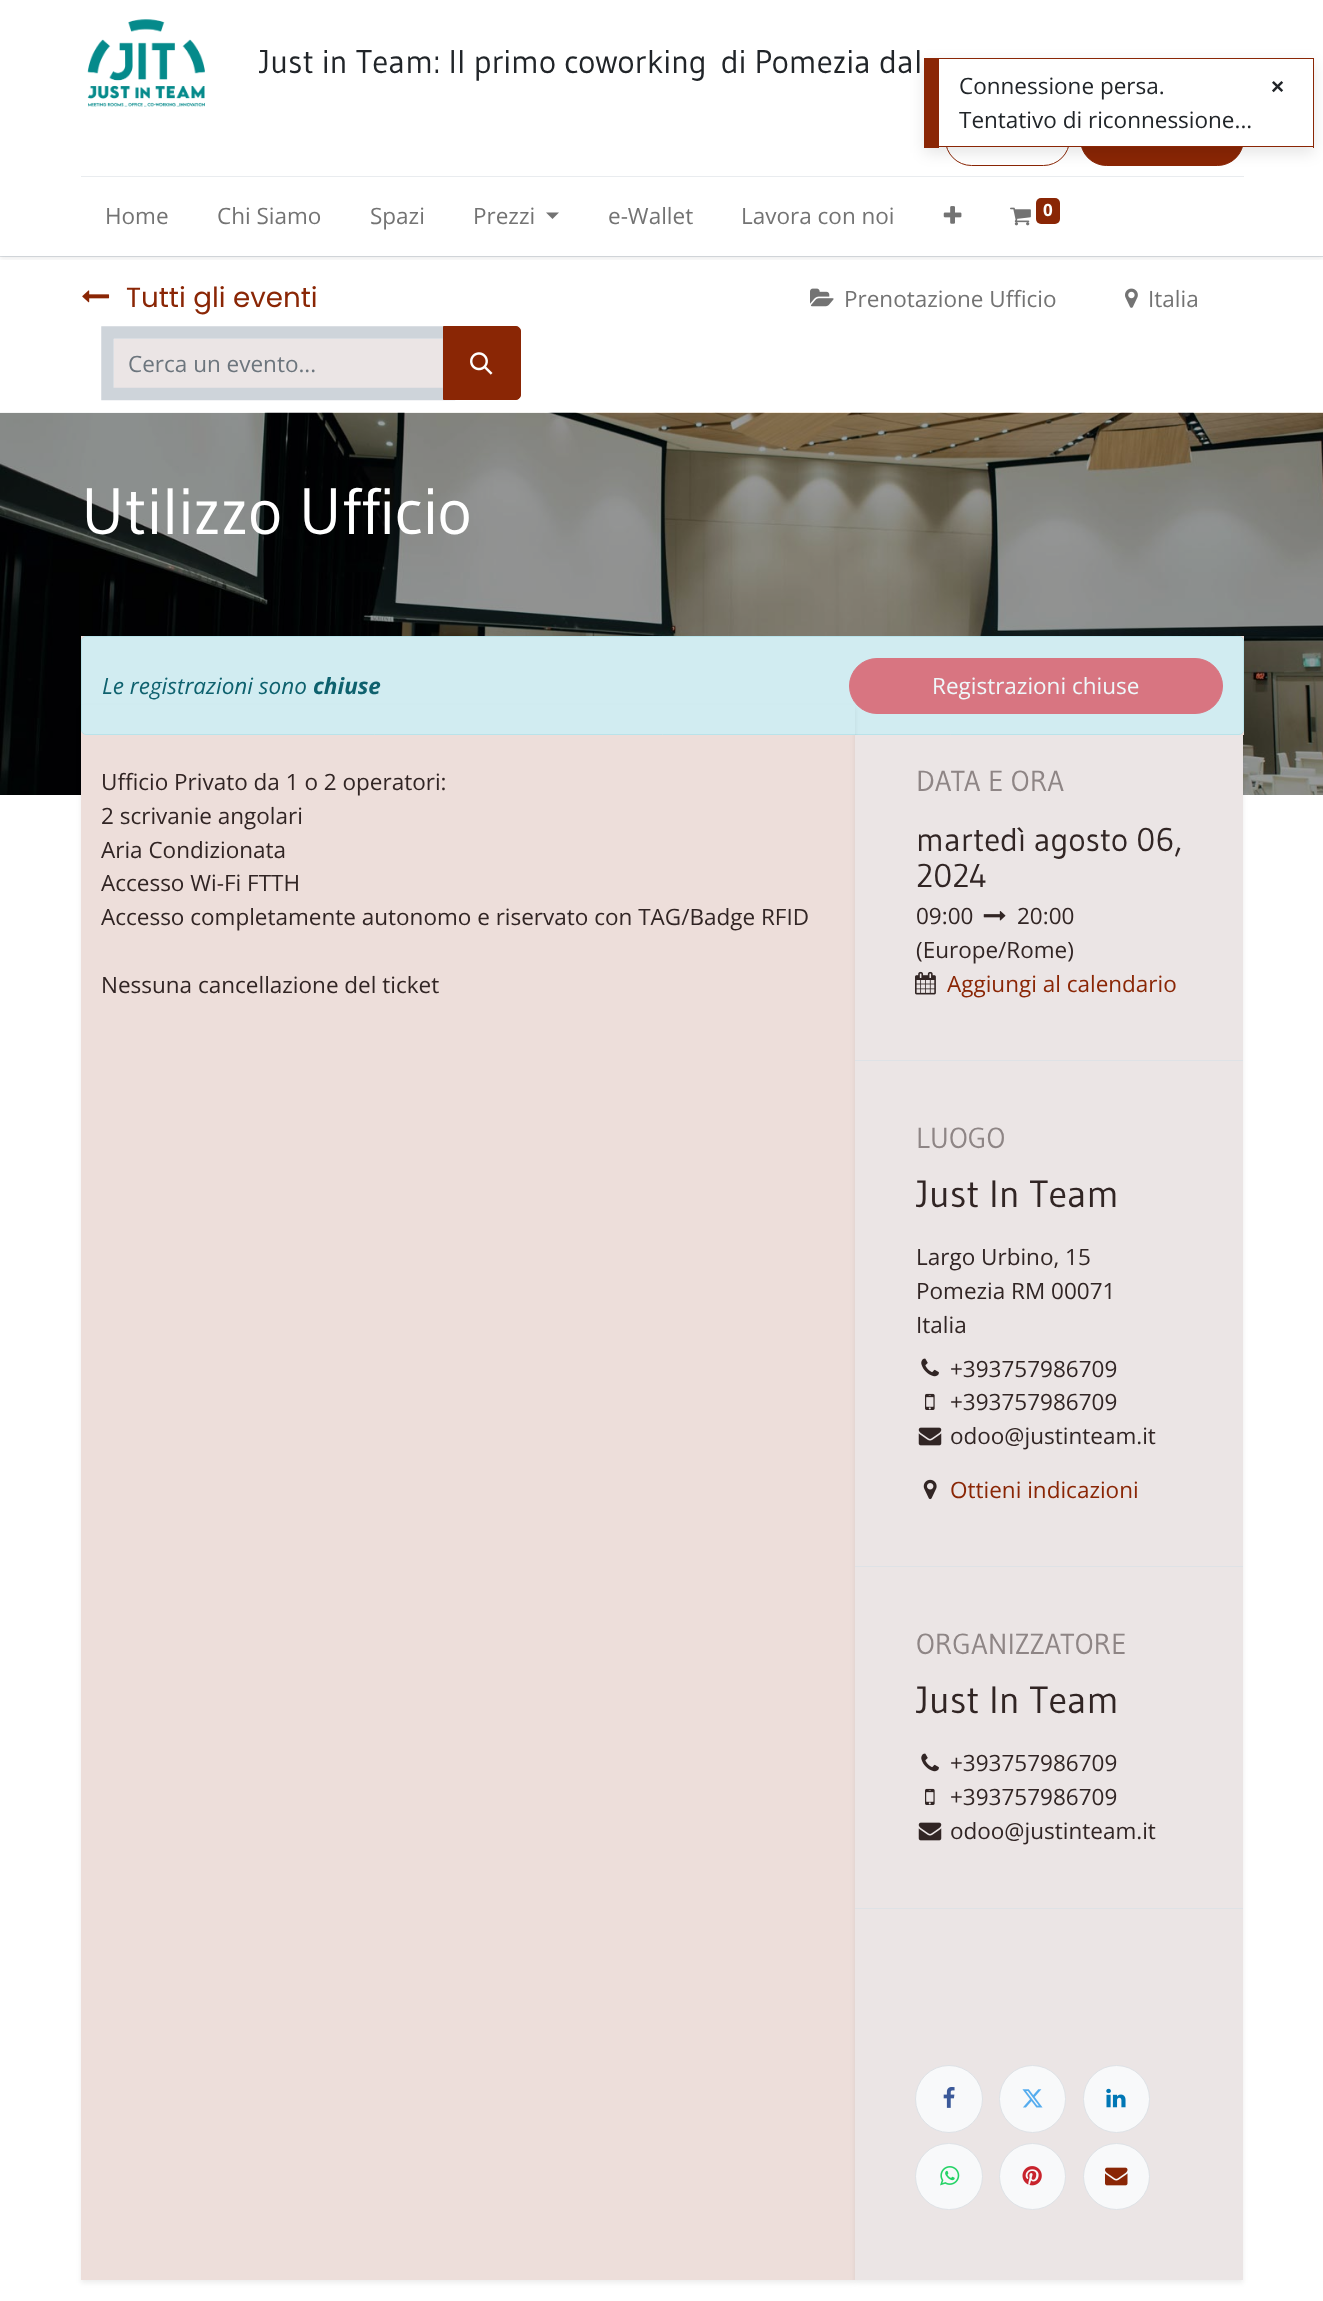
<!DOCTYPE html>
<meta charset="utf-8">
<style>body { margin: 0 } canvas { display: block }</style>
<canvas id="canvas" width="1323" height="2301"></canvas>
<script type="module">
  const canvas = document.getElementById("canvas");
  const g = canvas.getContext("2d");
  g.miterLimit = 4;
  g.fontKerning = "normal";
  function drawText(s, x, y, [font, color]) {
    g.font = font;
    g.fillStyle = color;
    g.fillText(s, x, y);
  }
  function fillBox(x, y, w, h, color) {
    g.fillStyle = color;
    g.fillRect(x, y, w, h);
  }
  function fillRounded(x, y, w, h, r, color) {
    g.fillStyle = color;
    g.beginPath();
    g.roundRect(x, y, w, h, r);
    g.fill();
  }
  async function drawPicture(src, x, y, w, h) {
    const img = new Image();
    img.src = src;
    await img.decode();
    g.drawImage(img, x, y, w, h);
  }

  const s1 = ["32.8px Gudea", "#212529"];
  const s2 = ["22.5px Open Sans", "#737373"];
  const s3 = ["bold 17px Open Sans", "#FFFFFF"];
  const s4 = ["27.75px Poppins", "#8A2605"];
  const s5 = ["22.5px Open Sans", "#6C757D"];
  const s6 = ["65.25px Gudea", "#FFFFFF"];
  const s7 = ["italic 22.5px Open Sans", "#0E616E"];
  const s8 = ["italic bold 22.5px Open Sans", "#0E616E"];
  const s9 = ["22.5px Open Sans", "#EFF8FA"];
  const s10 = ["22.5px Open Sans", "#312524"];
  const s11 = ["29px Gudea", "#8E8585"];
  const s12 = ["32.8px Gudea", "#312524"];
  const s13 = ["22.5px Open Sans", "#8A2605"];
  const s14 = ["38px Gudea", "#312524"];
  const s15 = ["22.5px Open Sans", "#212529"];
  const s16 = ["bold 22.5px Liberation Sans", "#212529"];

  fillBox(0, 0, 1323, 2301, "#FFFFFF");
  fillBox(0, 256, 1323, 1, "#DEE2E6");
  g.save();
  g.beginPath();
  g.rect(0, 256, 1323, 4);
  g.clip();
  g.fillStyle = "rgba(0, 0, 0, 0.07)";
  g.filter = "blur(2.5px)";
  g.beginPath();
  g.rect(0, 3, 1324, 256);
  g.fill();
  g.filter = "none";
  g.restore();
  await drawPicture("pic1.png", 87, 19, 118, 88);
  drawText("Just in Team: Il primo coworking", 259, 73, s1);
  drawText("di Pomezia dal", 721, 73, s1);
  g.beginPath();
  g.roundRect(945.5, 113.5, 124, 52, 26);
  g.strokeStyle = "#8A2605";
  g.stroke();
  g.fillStyle = "#8A2605";
  g.beginPath();
  g.roundRect(1080.5, 113.5, 163, 52, 26);
  g.fill();
  g.stroke();
  fillBox(81, 176, 1163, 1, "#E9ECEF");
  drawText("Home", 105, 224, s2);
  drawText("Chi Siamo", 217, 224, s2);
  drawText("Spazi", 370, 224, s2);
  drawText("Prezzi", 473, 224, s2);
  g.beginPath();
  g.moveTo(546, 212.5);
  g.lineTo(559, 212.5);
  g.lineTo(552.5, 219);
  g.closePath();
  g.fill();
  drawText("e-Wallet", 608, 224, s2);
  drawText("Lavora con noi", 741, 224, s2);
  await drawPicture("pic2.png", 943, 206, 19, 18);
  await drawPicture("pic3.png", 1010, 207, 21, 19);
  fillRounded(1036, 198, 24, 26, 5, "#8A2605");
  drawText("0", 1043, 216, s3);
  await drawPicture("pic4.png", 82, 290, 28, 13);
  drawText("Tutti gli eventi", 126, 307, s4);
  await drawPicture("pic5.png", 810, 288, 24, 19);
  drawText("Prenotazione Ufficio", 844, 307, s2);
  await drawPicture("pic6.png", 1125, 288, 13, 20);
  drawText("Italia", 1148, 307, s2);
  fillBox(114, 339, 329, 49, "#EBE5E5");
  g.beginPath();
  g.moveTo(107.5, 332.5);
  g.lineTo(449, 332.5);
  g.lineTo(449, 394);
  g.lineTo(107.5, 394);
  g.closePath();
  g.strokeStyle = "#CED4DA";
  g.lineWidth = 12.5;
  g.stroke();
  drawText("Cerca un evento...", 128, 372, s5);
  g.fillStyle = "#8A2605";
  g.beginPath();
  g.roundRect(443.5, 326.5, 77, 73, [0, 4.5, 4.5, 0]);
  g.fill();
  g.strokeStyle = "#8A2605";
  g.lineWidth = 1;
  g.stroke();
  await drawPicture("pic7.png", 470, 352, 23, 23);
  await drawPicture("pic8.png", 0, 412, 1323, 383);
  drawText("Utilizzo Ufficio", 81, 534, s6);
  fillBox(81, 636, 1163, 99, "#EDDEDA");
  g.fillStyle = "#D1ECF1";
  g.beginPath();
  g.roundRect(81.5, 636.5, 1162, 98, 4.5);
  g.fill();
  g.strokeStyle = "#B9E3EA";
  g.stroke();
  drawText("Le registrazioni sono", 102, 694, s7);
  drawText("chiuse", 313, 694, s8);
  g.fillStyle = "#D87581";
  g.beginPath();
  g.roundRect(849.5, 658.5, 373, 55, 27.5);
  g.fill();
  g.strokeStyle = "#D87581";
  g.stroke();
  drawText("Registrazioni chiuse", 932, 694, s9);
  g.save();
  g.beginPath();
  g.moveTo(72, 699);
  g.lineTo(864, 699);
  g.lineTo(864, 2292);
  g.lineTo(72, 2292);
  g.closePath();
  g.moveTo(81, 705);
  g.lineTo(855, 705);
  g.lineTo(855, 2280);
  g.lineTo(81, 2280);
  g.closePath();
  g.clip("evenodd");
  g.fillStyle = "rgba(0, 0, 0, 0.07)";
  g.filter = "blur(2.5px)";
  g.beginPath();
  g.rect(81, 708, 774, 1575);
  g.fill();
  g.filter = "none";
  g.restore();
  fillBox(81, 735, 774, 1545, "#EDDEDA");
  drawText("Ufficio Privato da 1 o 2 operatori:", 101, 790, s10);
  drawText("2 scrivanie angolari", 101, 824, s10);
  drawText("Aria Condizionata", 101, 858, s10);
  drawText("Accesso Wi-Fi FTTH", 101, 891, s10);
  drawText("Accesso completamente autonomo e riservato con TAG/Badge RFID", 101, 925, s10);
  drawText("Nessuna cancellazione del ticket", 101, 993, s10);
  g.save();
  g.beginPath();
  g.rect(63, 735, 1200, 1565);
  g.clip();
  g.fillStyle = "rgba(0, 0, 0, 0.07)";
  g.filter = "blur(2.5px)";
  g.beginPath();
  g.rect(855, 708, 388, 1575);
  g.fill();
  g.filter = "none";
  g.restore();
  fillBox(855, 735, 388, 1545, "#EBE5E5");
  fillBox(855, 1060, 388, 1, "#DEE2E6");
  drawText("DATA E ORA", 916, 791, s11);
  drawText("martedì agosto 06,", 916, 851, s12);
  drawText("2024", 916, 887, s12);
  drawText("09:00", 916, 924, s10);
  await drawPicture("pic9.png", 983, 911, 23, 10);
  drawText("20:00", 1017, 924, s10);
  drawText("(Europe/Rome)", 916, 958, s10);
  await drawPicture("pic10.png", 915, 971, 21, 24);
  drawText("Aggiungi al calendario", 947, 992, s13);
  fillBox(855, 1566, 388, 1, "#DEE2E6");
  drawText("LUOGO", 916, 1148, s11);
  drawText("Just In Team", 916, 1207, s14);
  drawText("Largo Urbino, 15", 916, 1265, s10);
  drawText("Pomezia RM 00071", 916, 1299, s10);
  drawText("Italia", 916, 1333, s10);
  await drawPicture("pic11.png", 921, 1358, 18, 19);
  drawText("+393757986709", 950, 1377, s10);
  await drawPicture("pic12.png", 925, 1393, 10, 17);
  drawText("+393757986709", 950, 1410, s10);
  await drawPicture("pic13.png", 918, 1427, 24, 19);
  drawText("odoo@justinteam.it", 950, 1444, s10);
  await drawPicture("pic14.png", 923, 1479, 14, 21);
  drawText("Ottieni indicazioni", 950, 1498, s13);
  fillBox(855, 1908, 388, 1, "#DEE2E6");
  drawText("ORGANIZZATORE", 916, 1654, s11);
  drawText("Just In Team", 916, 1713, s14);
  await drawPicture("pic11.png", 921, 1753, 18, 19);
  drawText("+393757986709", 950, 1771, s10);
  await drawPicture("pic12.png", 925, 1788, 10, 17);
  drawText("+393757986709", 950, 1805, s10);
  await drawPicture("pic13.png", 918, 1822, 24, 19);
  drawText("odoo@justinteam.it", 950, 1839, s10);
  g.fillStyle = "#F8F9FA";
  g.beginPath();
  g.arc(949, 2099, 33.5, 0, Math.PI * 2);
  g.fill();
  g.strokeStyle = "#DEE2E6";
  g.stroke();
  await drawPicture("pic15.png", 943, 2087, 12, 21);
  g.beginPath();
  g.roundRect(999.5, 2065.5, 66, 67, 33);
  g.fill();
  g.stroke();
  await drawPicture("pic16.png", 1022, 2089, 21, 19);
  g.beginPath();
  g.roundRect(1083.5, 2065.5, 66, 67, 33);
  g.fill();
  g.stroke();
  await drawPicture("pic17.png", 1106, 2088, 20, 20);
  g.beginPath();
  g.roundRect(915.5, 2143.5, 67, 66, 33);
  g.fill();
  g.stroke();
  await drawPicture("pic18.png", 940, 2166, 20, 20);
  g.beginPath();
  g.arc(1032.5, 2176.5, 33, 0, Math.PI * 2);
  g.fill();
  g.stroke();
  await drawPicture("pic19.png", 1022, 2166, 20, 20);
  g.beginPath();
  g.arc(1116.5, 2176.5, 33, 0, Math.PI * 2);
  g.fill();
  g.stroke();
  await drawPicture("pic20.png", 1105, 2167, 23, 19);
  g.fillStyle = "rgba(0, 0, 0, 0.1)";
  g.filter = "blur(7.5px)";
  g.beginPath();
  g.rect(924, 63, 390, 90);
  g.fill();
  g.filter = "none";
  fillBox(939, 59, 374, 87, "#FFFFFF");
  fillBox(939, 58, 375, 1, "#8A2605");
  fillBox(1313, 58, 1, 90, "#8A2605");
  fillBox(939, 146, 375, 1, "#8A2605");
  fillBox(924, 58, 15, 90, "#8A2605");
  drawText("Connessione persa.", 959, 94, s15);
  drawText("Tentativo di riconnessione...", 959, 128, s15);
  drawText("×", 1271, 94, s16);
</script>
